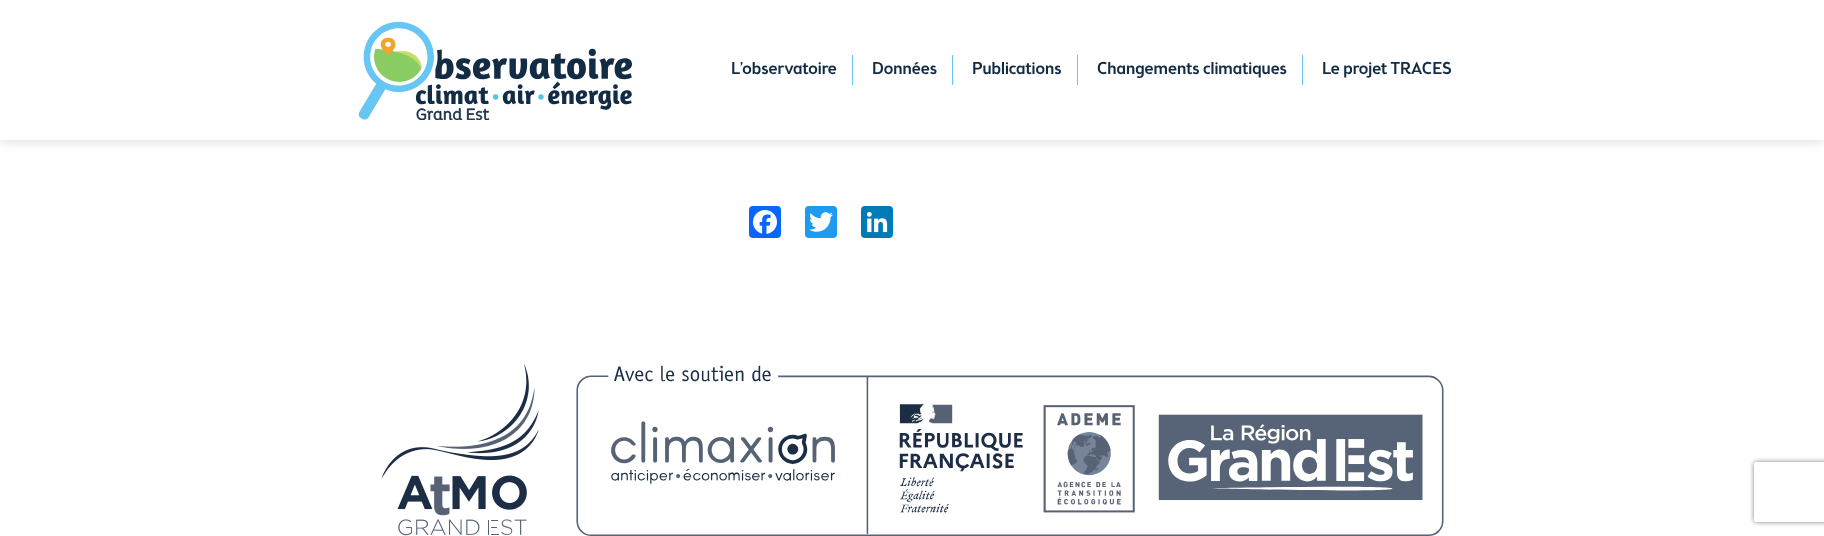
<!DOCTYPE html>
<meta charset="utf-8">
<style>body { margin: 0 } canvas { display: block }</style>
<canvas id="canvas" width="1824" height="536"></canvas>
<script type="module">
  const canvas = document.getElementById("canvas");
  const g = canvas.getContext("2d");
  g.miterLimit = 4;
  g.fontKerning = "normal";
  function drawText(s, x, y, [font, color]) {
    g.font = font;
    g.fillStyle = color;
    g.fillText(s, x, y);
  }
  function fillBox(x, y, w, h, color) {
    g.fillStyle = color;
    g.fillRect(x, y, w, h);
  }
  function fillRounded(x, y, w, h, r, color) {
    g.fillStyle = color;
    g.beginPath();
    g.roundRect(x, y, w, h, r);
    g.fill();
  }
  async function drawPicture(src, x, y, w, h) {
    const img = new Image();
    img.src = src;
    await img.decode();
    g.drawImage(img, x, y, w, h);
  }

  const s1 = ["500 17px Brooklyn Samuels", "#122C45"];

  fillBox(0, 0, 1824, 536, "#FFFFFF");
  g.save();
  g.beginPath();
  g.rect(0, 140, 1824, 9);
  g.clip();
  g.fillStyle = "rgba(150, 150, 150, 0.3)";
  g.filter = "blur(5px)";
  g.beginPath();
  g.rect(0, 2, 1824, 140);
  g.fill();
  g.filter = "none";
  g.restore();
  await drawPicture("pic1.png", 358, 21, 274, 99);
  fillBox(852, 55, 1, 30, "#67C6F4");
  drawText("L’observatoire", 731, 74, s1);
  fillBox(952, 55, 1, 30, "#67C6F4");
  drawText("Données", 872, 74, s1);
  fillBox(1077, 55, 1, 30, "#67C6F4");
  drawText("Publications", 972, 74, s1);
  fillBox(1302, 55, 1, 30, "#67C6F4");
  drawText("Changements climatiques", 1097, 74, s1);
  drawText("Le projet TRACES", 1322, 74, s1);
  fillRounded(749, 206, 32, 32, 4, "#0866FF");
  await drawPicture("pic2.png", 753, 210, 24, 24);
  fillRounded(805, 206, 32, 32, 4, "#1D9BF0");
  await drawPicture("pic3.png", 809, 212, 24, 20);
  fillRounded(861, 206, 32, 32, 4, "#007BB5");
  await drawPicture("pic4.png", 866, 211, 22, 22);
  await drawPicture("pic5.png", 381, 364, 158, 172);
  await drawPicture("pic6.png", 576, 365, 868, 171);
  g.save();
  g.beginPath();
  g.moveTo(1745, 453);
  g.lineTo(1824, 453);
  g.lineTo(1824, 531);
  g.lineTo(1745, 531);
  g.closePath();
  g.moveTo(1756, 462);
  g.lineTo(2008, 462);
  g.bezierCurveTo(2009, 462, 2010, 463, 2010, 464);
  g.lineTo(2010, 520);
  g.bezierCurveTo(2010, 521, 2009, 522, 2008, 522);
  g.lineTo(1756, 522);
  g.bezierCurveTo(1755, 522, 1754, 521, 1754, 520);
  g.lineTo(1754, 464);
  g.bezierCurveTo(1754, 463, 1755, 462, 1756, 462);
  g.closePath();
  g.clip("evenodd");
  g.fillStyle = "#808080";
  g.filter = "blur(2.5px)";
  g.beginPath();
  g.roundRect(1754, 462, 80, 60, 2);
  g.fill();
  g.filter = "none";
  g.restore();
</script>
